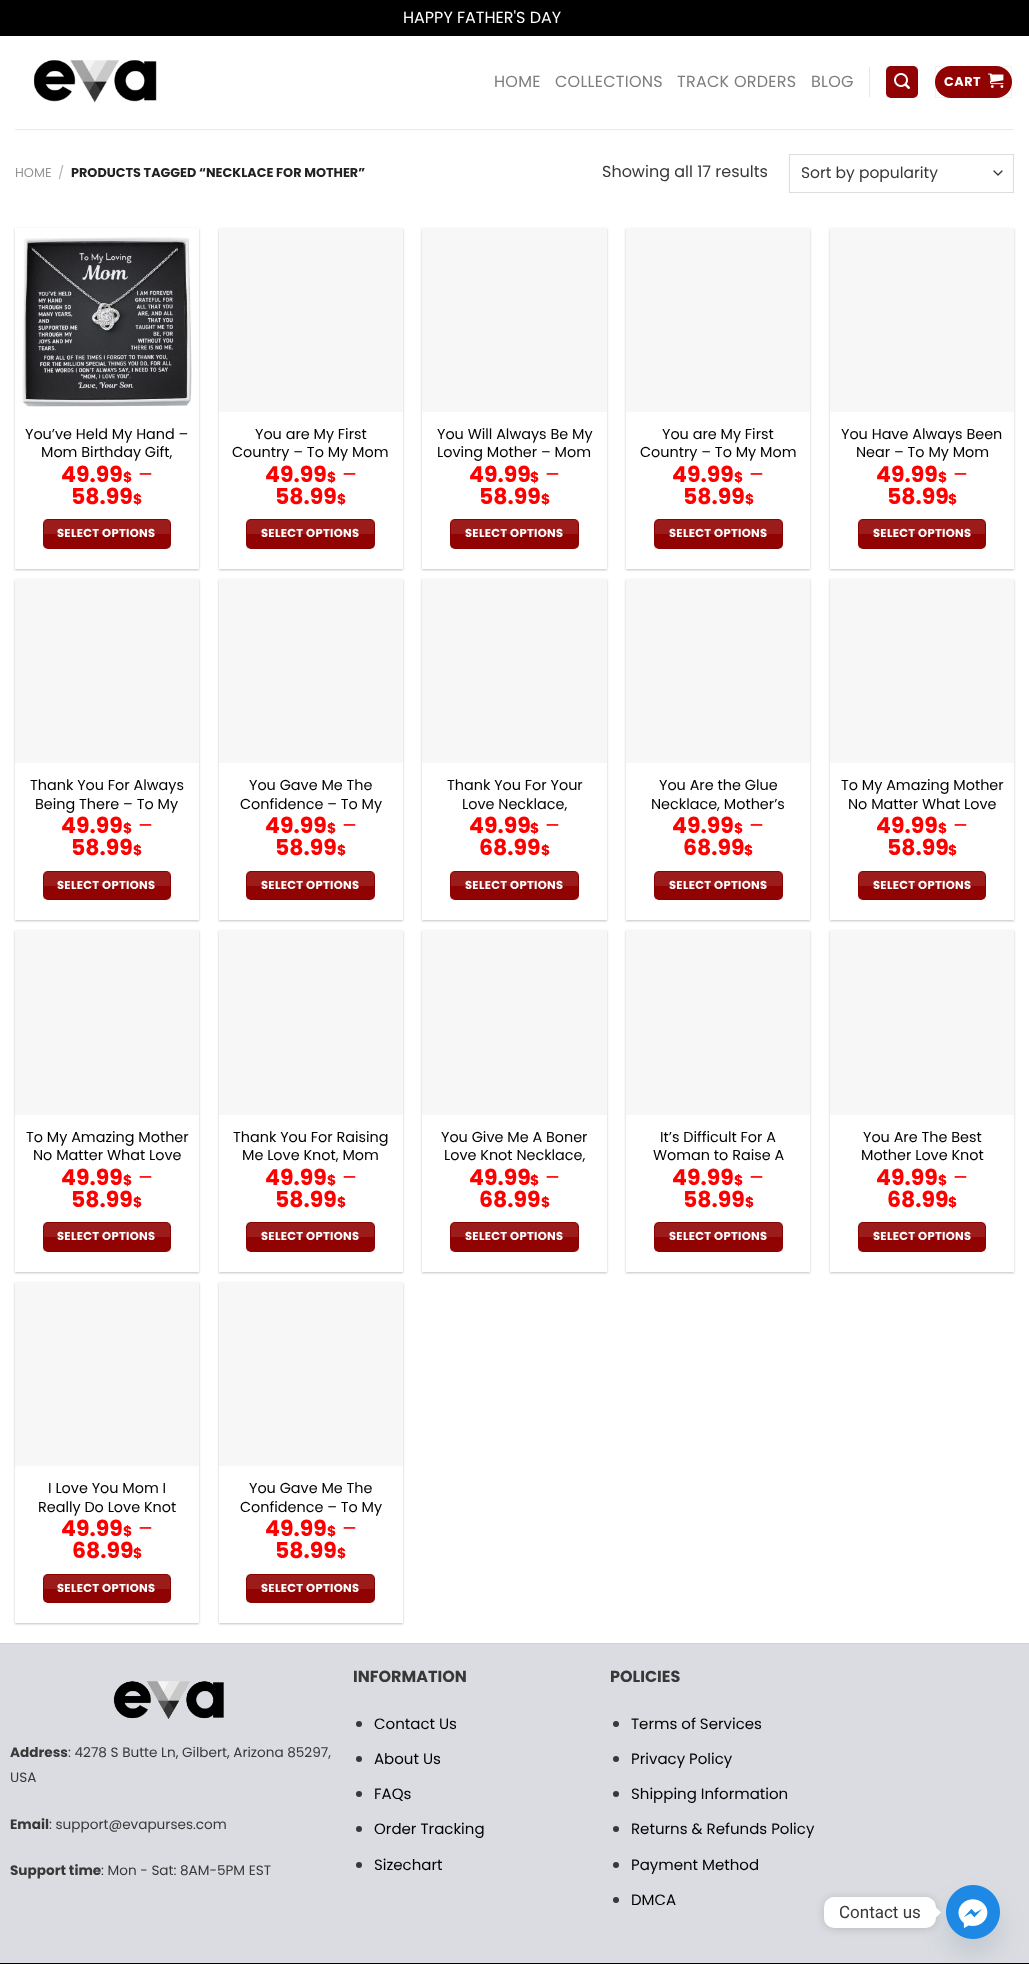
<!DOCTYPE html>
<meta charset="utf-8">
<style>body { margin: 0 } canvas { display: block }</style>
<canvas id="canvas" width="1029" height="1964"></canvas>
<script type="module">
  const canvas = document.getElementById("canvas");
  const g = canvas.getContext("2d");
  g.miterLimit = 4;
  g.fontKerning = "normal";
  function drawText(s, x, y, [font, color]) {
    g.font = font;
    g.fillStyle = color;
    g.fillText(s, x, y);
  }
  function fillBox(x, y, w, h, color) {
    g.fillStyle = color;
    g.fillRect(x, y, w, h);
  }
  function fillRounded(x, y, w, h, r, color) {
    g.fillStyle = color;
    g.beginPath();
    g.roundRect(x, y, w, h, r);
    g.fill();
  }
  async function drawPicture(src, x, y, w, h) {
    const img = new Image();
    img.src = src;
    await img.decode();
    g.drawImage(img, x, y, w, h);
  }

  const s1 = ["16px Poppins", "#FFFFFF"];
  const s2 = ["16px Poppins", "#7D7D7D"];
  const s3 = ["bold 12.8px Poppins", "#FFFFFF"];
  const s4 = ["12.8px Poppins", "#949494"];
  const s5 = ["12.8px Poppins", "#B2B2B2"];
  const s6 = ["bold 12.8px Poppins", "#222222"];
  const s7 = ["16px Poppins", "#383838"];
  const s8 = ["15.5px Poppins", "#383838"];
  const s9 = ["14.4px Poppins", "#000000"];
  const s10 = ["bold 22px Poppins", "#FF0000"];
  const s11 = ["bold 14px Poppins", "#FF0000"];
  const s12 = ["22px Poppins", "#FF0000"];
  const s13 = ["bold 11.5px Poppins", "#FFFFFF"];
  const s14 = ["bold 13.6px Poppins", "#383838"];
  const s15 = ["13.6px Poppins", "#383838"];
  const s16 = ["bold 16px Poppins", "#383838"];
  const s17 = ["15px Poppins", "#000000"];
  const s18 = ["17px Roboto", "#383838"];

  fillBox(0, 0, 1029, 1964, "#000000");
  drawText("HAPPY FATHER'S DAY", 403, 23, s1);
  fillBox(0, 36, 1029, 1607, "#FFFFFF");
  await drawPicture("pic1.png", 33, 60, 124, 43);
  g.letterSpacing = "0.25px";
  drawText("HOME", 494, 87, s2);
  drawText("COLLECTIONS", 555, 87, s2);
  drawText("TRACK ORDERS", 677, 87, s2);
  drawText("BLOG", 811, 87, s2);
  fillBox(869, 67, 1, 30, "#E6E6E6");
  fillRounded(886, 66, 32, 32, 5, "#910202");
  g.strokeStyle = "rgba(0, 0, 0, 0.05)";
  g.strokeRect(886.5, 66.5, 31, 31);
  await drawPicture("pic2.png", 894, 73, 16, 16);
  fillRounded(935, 66, 77, 32, 16, "#910202");
  g.strokeRect(935.5, 66.5, 76, 31);
  g.letterSpacing = "0.5px";
  drawText("CART", 944, 86, s3);
  await drawPicture("pic3.png", 988, 73, 16, 15);
  fillBox(15, 129, 999, 1, "#EBEBEB");
  g.letterSpacing = "0px";
  drawText("HOME", 15, 177, s4);
  drawText("/", 58, 177, s5);
  drawText("PRODUCTS TAGGED “NECKLACE FOR MOTHER”", 71, 177, s6);
  drawText("Showing all 17 results", 602, 177, s7);
  g.beginPath();
  g.moveTo(994, 171);
  g.lineTo(998, 175);
  g.lineTo(1002, 171);
  g.strokeStyle = "#333333";
  g.lineWidth = 1.3;
  g.lineCap = "round";
  g.lineJoin = "round";
  g.stroke();
  g.strokeStyle = "#DDDDDD";
  g.lineWidth = 1;
  g.lineJoin = "miter";
  g.strokeRect(789.5, 154.5, 224, 38);
  drawText("Sort by popularity", 801, 178, s8);
  g.save();
  g.beginPath();
  g.moveTo(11, 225);
  g.lineTo(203, 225);
  g.lineTo(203, 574);
  g.lineTo(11, 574);
  g.closePath();
  g.moveTo(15, 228);
  g.lineTo(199, 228);
  g.lineTo(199, 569);
  g.lineTo(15, 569);
  g.closePath();
  g.clip("evenodd");
  g.fillStyle = "rgba(0, 0, 0, 0.24)";
  g.filter = "blur(1px)";
  g.beginPath();
  g.rect(15, 229, 184, 341);
  g.fill();
  g.filter = "none";
  g.restore();
  await drawPicture("pic4.png", 22, 237, 170, 170);
  drawText("You’ve Held My Hand –", 25, 439, s9);
  drawText("Mom Birthday Gift,", 41, 457, s9);
  drawText("49.99", 61, 482, s10);
  drawText("$", 123, 482, s11);
  drawText("–", 138, 482, s12);
  drawText("58.99", 71, 504, s10);
  drawText("$", 133, 504, s11);
  fillRounded(43, 519, 128, 30, 5, "#910202");
  g.strokeStyle = "rgba(0, 0, 0, 0.05)";
  g.strokeRect(43.5, 519.5, 127, 29);
  g.fillStyle = "rgba(255, 255, 255, 0.1)";
  g.beginPath();
  g.roundRect(44, 520, 126, 14, [4, 4, 0, 0]);
  g.fill();
  g.letterSpacing = "0.3px";
  drawText("SELECT OPTIONS", 57, 537, s13);
  g.save();
  g.beginPath();
  g.moveTo(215, 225);
  g.lineTo(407, 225);
  g.lineTo(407, 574);
  g.lineTo(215, 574);
  g.closePath();
  g.moveTo(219, 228);
  g.lineTo(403, 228);
  g.lineTo(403, 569);
  g.lineTo(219, 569);
  g.closePath();
  g.clip("evenodd");
  g.fillStyle = "rgba(0, 0, 0, 0.24)";
  g.filter = "blur(1px)";
  g.beginPath();
  g.rect(219, 229, 184, 341);
  g.fill();
  g.filter = "none";
  g.restore();
  fillBox(219, 228, 184, 184, "#F7F7F7");
  g.letterSpacing = "0px";
  drawText("You are My First", 255, 439, s9);
  drawText("Country – To My Mom", 232, 457, s9);
  drawText("49.99", 265, 482, s10);
  drawText("$", 327, 482, s11);
  drawText("–", 342, 482, s12);
  drawText("58.99", 275, 504, s10);
  drawText("$", 337, 504, s11);
  fillRounded(246, 519, 129, 30, 5, "#910202");
  g.strokeRect(246.5, 519.5, 128, 29);
  g.fillStyle = "rgba(255, 255, 255, 0.1)";
  g.beginPath();
  g.roundRect(247, 520, 127, 14, [4, 4, 0, 0]);
  g.fill();
  g.letterSpacing = "0.3px";
  drawText("SELECT OPTIONS", 261, 537, s13);
  g.save();
  g.beginPath();
  g.moveTo(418, 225);
  g.lineTo(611, 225);
  g.lineTo(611, 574);
  g.lineTo(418, 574);
  g.closePath();
  g.moveTo(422, 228);
  g.lineTo(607, 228);
  g.lineTo(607, 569);
  g.lineTo(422, 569);
  g.closePath();
  g.clip("evenodd");
  g.fillStyle = "rgba(0, 0, 0, 0.24)";
  g.filter = "blur(1px)";
  g.beginPath();
  g.rect(422, 229, 185, 341);
  g.fill();
  g.filter = "none";
  g.restore();
  fillBox(422, 228, 185, 184, "#F7F7F7");
  g.letterSpacing = "0px";
  drawText("You Will Always Be My", 437, 439, s9);
  drawText("Loving Mother – Mom", 437, 457, s9);
  drawText("49.99", 469, 482, s10);
  drawText("$", 530, 482, s11);
  drawText("–", 545, 482, s12);
  drawText("58.99", 479, 504, s10);
  drawText("$", 541, 504, s11);
  fillRounded(450, 519, 129, 30, 5, "#910202");
  g.strokeRect(450.5, 519.5, 128, 29);
  g.fillStyle = "rgba(255, 255, 255, 0.1)";
  g.beginPath();
  g.roundRect(451, 520, 127, 14, [4, 4, 0, 0]);
  g.fill();
  g.letterSpacing = "0.3px";
  drawText("SELECT OPTIONS", 465, 537, s13);
  g.save();
  g.beginPath();
  g.moveTo(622, 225);
  g.lineTo(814, 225);
  g.lineTo(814, 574);
  g.lineTo(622, 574);
  g.closePath();
  g.moveTo(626, 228);
  g.lineTo(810, 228);
  g.lineTo(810, 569);
  g.lineTo(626, 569);
  g.closePath();
  g.clip("evenodd");
  g.fillStyle = "rgba(0, 0, 0, 0.24)";
  g.filter = "blur(1px)";
  g.beginPath();
  g.rect(626, 229, 184, 341);
  g.fill();
  g.filter = "none";
  g.restore();
  fillBox(626, 228, 184, 184, "#F7F7F7");
  g.letterSpacing = "0px";
  drawText("You are My First", 662, 439, s9);
  drawText("Country – To My Mom", 640, 457, s9);
  drawText("49.99", 672, 482, s10);
  drawText("$", 734, 482, s11);
  drawText("–", 749, 482, s12);
  drawText("58.99", 683, 504, s10);
  drawText("$", 745, 504, s11);
  fillRounded(654, 519, 129, 30, 5, "#910202");
  g.strokeRect(654.5, 519.5, 128, 29);
  g.fillStyle = "rgba(255, 255, 255, 0.1)";
  g.beginPath();
  g.roundRect(655, 520, 127, 14, [4, 4, 0, 0]);
  g.fill();
  g.letterSpacing = "0.3px";
  drawText("SELECT OPTIONS", 669, 537, s13);
  g.save();
  g.beginPath();
  g.moveTo(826, 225);
  g.lineTo(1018, 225);
  g.lineTo(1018, 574);
  g.lineTo(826, 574);
  g.closePath();
  g.moveTo(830, 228);
  g.lineTo(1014, 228);
  g.lineTo(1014, 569);
  g.lineTo(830, 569);
  g.closePath();
  g.clip("evenodd");
  g.fillStyle = "rgba(0, 0, 0, 0.24)";
  g.filter = "blur(1px)";
  g.beginPath();
  g.rect(830, 229, 184, 341);
  g.fill();
  g.filter = "none";
  g.restore();
  fillBox(830, 228, 184, 184, "#F7F7F7");
  g.letterSpacing = "0px";
  drawText("You Have Always Been", 841, 439, s9);
  drawText("Near – To My Mom", 856, 457, s9);
  drawText("49.99", 876, 482, s10);
  drawText("$", 938, 482, s11);
  drawText("–", 953, 482, s12);
  drawText("58.99", 887, 504, s10);
  drawText("$", 948, 504, s11);
  fillRounded(858, 519, 128, 30, 5, "#910202");
  g.strokeRect(858.5, 519.5, 127, 29);
  g.fillStyle = "rgba(255, 255, 255, 0.1)";
  g.beginPath();
  g.roundRect(859, 520, 126, 14, [4, 4, 0, 0]);
  g.fill();
  g.letterSpacing = "0.3px";
  drawText("SELECT OPTIONS", 873, 537, s13);
  g.save();
  g.beginPath();
  g.moveTo(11, 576);
  g.lineTo(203, 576);
  g.lineTo(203, 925);
  g.lineTo(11, 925);
  g.closePath();
  g.moveTo(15, 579);
  g.lineTo(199, 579);
  g.lineTo(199, 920);
  g.lineTo(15, 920);
  g.closePath();
  g.clip("evenodd");
  g.fillStyle = "rgba(0, 0, 0, 0.24)";
  g.filter = "blur(1px)";
  g.beginPath();
  g.rect(15, 580, 184, 341);
  g.fill();
  g.filter = "none";
  g.restore();
  fillBox(15, 579, 184, 184, "#F7F7F7");
  g.letterSpacing = "0px";
  drawText("Thank You For Always", 30, 790, s9);
  drawText("Being There – To My", 35, 809, s9);
  drawText("49.99", 61, 833, s10);
  drawText("$", 123, 833, s11);
  drawText("–", 138, 833, s12);
  drawText("58.99", 71, 855, s10);
  drawText("$", 133, 855, s11);
  fillRounded(43, 871, 128, 29, 5, "#910202");
  g.strokeRect(43.5, 871.5, 127, 28);
  g.fillStyle = "rgba(255, 255, 255, 0.1)";
  g.beginPath();
  g.roundRect(44, 872, 126, 14, [4, 4, 0, 0]);
  g.fill();
  g.letterSpacing = "0.3px";
  drawText("SELECT OPTIONS", 57, 889, s13);
  g.save();
  g.beginPath();
  g.moveTo(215, 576);
  g.lineTo(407, 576);
  g.lineTo(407, 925);
  g.lineTo(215, 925);
  g.closePath();
  g.moveTo(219, 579);
  g.lineTo(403, 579);
  g.lineTo(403, 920);
  g.lineTo(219, 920);
  g.closePath();
  g.clip("evenodd");
  g.fillStyle = "rgba(0, 0, 0, 0.24)";
  g.filter = "blur(1px)";
  g.beginPath();
  g.rect(219, 580, 184, 341);
  g.fill();
  g.filter = "none";
  g.restore();
  fillBox(219, 579, 184, 184, "#F7F7F7");
  g.letterSpacing = "0px";
  drawText("You Gave Me The", 249, 790, s9);
  drawText("Confidence – To My", 240, 809, s9);
  drawText("49.99", 265, 833, s10);
  drawText("$", 327, 833, s11);
  drawText("–", 342, 833, s12);
  drawText("58.99", 275, 855, s10);
  drawText("$", 337, 855, s11);
  fillRounded(246, 871, 129, 29, 5, "#910202");
  g.strokeRect(246.5, 871.5, 128, 28);
  g.fillStyle = "rgba(255, 255, 255, 0.1)";
  g.beginPath();
  g.roundRect(247, 872, 127, 14, [4, 4, 0, 0]);
  g.fill();
  g.letterSpacing = "0.3px";
  drawText("SELECT OPTIONS", 261, 889, s13);
  g.save();
  g.beginPath();
  g.moveTo(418, 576);
  g.lineTo(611, 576);
  g.lineTo(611, 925);
  g.lineTo(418, 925);
  g.closePath();
  g.moveTo(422, 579);
  g.lineTo(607, 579);
  g.lineTo(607, 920);
  g.lineTo(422, 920);
  g.closePath();
  g.clip("evenodd");
  g.fillStyle = "rgba(0, 0, 0, 0.24)";
  g.filter = "blur(1px)";
  g.beginPath();
  g.rect(422, 580, 185, 341);
  g.fill();
  g.filter = "none";
  g.restore();
  fillBox(422, 579, 185, 184, "#F7F7F7");
  g.letterSpacing = "0px";
  drawText("Thank You For Your", 447, 790, s9);
  drawText("Love Necklace,", 462, 809, s9);
  drawText("49.99", 469, 833, s10);
  drawText("$", 530, 833, s11);
  drawText("–", 545, 833, s12);
  drawText("68.99", 479, 855, s10);
  drawText("$", 541, 855, s11);
  fillRounded(450, 871, 129, 29, 5, "#910202");
  g.strokeRect(450.5, 871.5, 128, 28);
  g.fillStyle = "rgba(255, 255, 255, 0.1)";
  g.beginPath();
  g.roundRect(451, 872, 127, 14, [4, 4, 0, 0]);
  g.fill();
  g.letterSpacing = "0.3px";
  drawText("SELECT OPTIONS", 465, 889, s13);
  g.save();
  g.beginPath();
  g.moveTo(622, 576);
  g.lineTo(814, 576);
  g.lineTo(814, 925);
  g.lineTo(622, 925);
  g.closePath();
  g.moveTo(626, 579);
  g.lineTo(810, 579);
  g.lineTo(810, 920);
  g.lineTo(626, 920);
  g.closePath();
  g.clip("evenodd");
  g.fillStyle = "rgba(0, 0, 0, 0.24)";
  g.filter = "blur(1px)";
  g.beginPath();
  g.rect(626, 580, 184, 341);
  g.fill();
  g.filter = "none";
  g.restore();
  fillBox(626, 579, 184, 184, "#F7F7F7");
  g.letterSpacing = "0px";
  drawText("You Are the Glue", 659, 790, s9);
  drawText("Necklace, Mother’s", 651, 809, s9);
  drawText("49.99", 672, 833, s10);
  drawText("$", 734, 833, s11);
  drawText("–", 749, 833, s12);
  drawText("68.99", 683, 855, s10);
  drawText("$", 744, 855, s11);
  fillRounded(654, 871, 129, 29, 5, "#910202");
  g.strokeRect(654.5, 871.5, 128, 28);
  g.fillStyle = "rgba(255, 255, 255, 0.1)";
  g.beginPath();
  g.roundRect(655, 872, 127, 14, [4, 4, 0, 0]);
  g.fill();
  g.letterSpacing = "0.3px";
  drawText("SELECT OPTIONS", 669, 889, s13);
  g.save();
  g.beginPath();
  g.moveTo(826, 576);
  g.lineTo(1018, 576);
  g.lineTo(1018, 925);
  g.lineTo(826, 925);
  g.closePath();
  g.moveTo(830, 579);
  g.lineTo(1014, 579);
  g.lineTo(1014, 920);
  g.lineTo(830, 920);
  g.closePath();
  g.clip("evenodd");
  g.fillStyle = "rgba(0, 0, 0, 0.24)";
  g.filter = "blur(1px)";
  g.beginPath();
  g.rect(830, 580, 184, 341);
  g.fill();
  g.filter = "none";
  g.restore();
  fillBox(830, 579, 184, 184, "#F7F7F7");
  g.letterSpacing = "0px";
  drawText("To My Amazing Mother", 841, 790, s9);
  drawText("No Matter What Love", 848, 809, s9);
  drawText("49.99", 876, 833, s10);
  drawText("$", 938, 833, s11);
  drawText("–", 953, 833, s12);
  drawText("58.99", 887, 855, s10);
  drawText("$", 948, 855, s11);
  fillRounded(858, 871, 128, 29, 5, "#910202");
  g.strokeRect(858.5, 871.5, 127, 28);
  g.fillStyle = "rgba(255, 255, 255, 0.1)";
  g.beginPath();
  g.roundRect(859, 872, 126, 14, [4, 4, 0, 0]);
  g.fill();
  g.letterSpacing = "0.3px";
  drawText("SELECT OPTIONS", 873, 889, s13);
  g.save();
  g.beginPath();
  g.moveTo(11, 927);
  g.lineTo(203, 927);
  g.lineTo(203, 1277);
  g.lineTo(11, 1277);
  g.closePath();
  g.moveTo(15, 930);
  g.lineTo(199, 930);
  g.lineTo(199, 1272);
  g.lineTo(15, 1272);
  g.closePath();
  g.clip("evenodd");
  g.fillStyle = "rgba(0, 0, 0, 0.24)";
  g.filter = "blur(1px)";
  g.beginPath();
  g.rect(15, 931, 184, 342);
  g.fill();
  g.filter = "none";
  g.restore();
  fillBox(15, 930, 184, 185, "#F7F7F7");
  g.letterSpacing = "0px";
  drawText("To My Amazing Mother", 26, 1142, s9);
  drawText("No Matter What Love", 33, 1160, s9);
  drawText("49.99", 61, 1185, s10);
  drawText("$", 123, 1185, s11);
  drawText("–", 138, 1185, s12);
  drawText("58.99", 71, 1207, s10);
  drawText("$", 133, 1207, s11);
  fillRounded(43, 1222, 128, 30, 5, "#910202");
  g.strokeRect(43.5, 1222.5, 127, 29);
  g.fillStyle = "rgba(255, 255, 255, 0.1)";
  g.beginPath();
  g.roundRect(44, 1223, 126, 14, [4, 4, 0, 0]);
  g.fill();
  g.letterSpacing = "0.3px";
  drawText("SELECT OPTIONS", 57, 1240, s13);
  g.save();
  g.beginPath();
  g.moveTo(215, 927);
  g.lineTo(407, 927);
  g.lineTo(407, 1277);
  g.lineTo(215, 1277);
  g.closePath();
  g.moveTo(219, 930);
  g.lineTo(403, 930);
  g.lineTo(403, 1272);
  g.lineTo(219, 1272);
  g.closePath();
  g.clip("evenodd");
  g.fillStyle = "rgba(0, 0, 0, 0.24)";
  g.filter = "blur(1px)";
  g.beginPath();
  g.rect(219, 931, 184, 342);
  g.fill();
  g.filter = "none";
  g.restore();
  fillBox(219, 930, 184, 185, "#F7F7F7");
  g.letterSpacing = "0px";
  drawText("Thank You For Raising", 233, 1142, s9);
  drawText("Me Love Knot, Mom", 242, 1160, s9);
  drawText("49.99", 265, 1185, s10);
  drawText("$", 327, 1185, s11);
  drawText("–", 342, 1185, s12);
  drawText("58.99", 275, 1207, s10);
  drawText("$", 337, 1207, s11);
  fillRounded(246, 1222, 129, 30, 5, "#910202");
  g.strokeRect(246.5, 1222.5, 128, 29);
  g.fillStyle = "rgba(255, 255, 255, 0.1)";
  g.beginPath();
  g.roundRect(247, 1223, 127, 14, [4, 4, 0, 0]);
  g.fill();
  g.letterSpacing = "0.3px";
  drawText("SELECT OPTIONS", 261, 1240, s13);
  g.save();
  g.beginPath();
  g.moveTo(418, 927);
  g.lineTo(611, 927);
  g.lineTo(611, 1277);
  g.lineTo(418, 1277);
  g.closePath();
  g.moveTo(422, 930);
  g.lineTo(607, 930);
  g.lineTo(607, 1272);
  g.lineTo(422, 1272);
  g.closePath();
  g.clip("evenodd");
  g.fillStyle = "rgba(0, 0, 0, 0.24)";
  g.filter = "blur(1px)";
  g.beginPath();
  g.rect(422, 931, 185, 342);
  g.fill();
  g.filter = "none";
  g.restore();
  fillBox(422, 930, 185, 185, "#F7F7F7");
  g.letterSpacing = "0px";
  drawText("You Give Me A Boner", 441, 1142, s9);
  drawText("Love Knot Necklace,", 444, 1160, s9);
  drawText("49.99", 469, 1185, s10);
  drawText("$", 530, 1185, s11);
  drawText("–", 545, 1185, s12);
  drawText("68.99", 479, 1207, s10);
  drawText("$", 541, 1207, s11);
  fillRounded(450, 1222, 129, 30, 5, "#910202");
  g.strokeRect(450.5, 1222.5, 128, 29);
  g.fillStyle = "rgba(255, 255, 255, 0.1)";
  g.beginPath();
  g.roundRect(451, 1223, 127, 14, [4, 4, 0, 0]);
  g.fill();
  g.letterSpacing = "0.3px";
  drawText("SELECT OPTIONS", 465, 1240, s13);
  g.save();
  g.beginPath();
  g.moveTo(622, 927);
  g.lineTo(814, 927);
  g.lineTo(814, 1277);
  g.lineTo(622, 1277);
  g.closePath();
  g.moveTo(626, 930);
  g.lineTo(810, 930);
  g.lineTo(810, 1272);
  g.lineTo(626, 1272);
  g.closePath();
  g.clip("evenodd");
  g.fillStyle = "rgba(0, 0, 0, 0.24)";
  g.filter = "blur(1px)";
  g.beginPath();
  g.rect(626, 931, 184, 342);
  g.fill();
  g.filter = "none";
  g.restore();
  fillBox(626, 930, 184, 185, "#F7F7F7");
  g.letterSpacing = "0px";
  drawText("It’s Difficult For A", 660, 1142, s9);
  drawText("Woman to Raise A", 653, 1160, s9);
  drawText("49.99", 672, 1185, s10);
  drawText("$", 734, 1185, s11);
  drawText("–", 749, 1185, s12);
  drawText("58.99", 683, 1207, s10);
  drawText("$", 745, 1207, s11);
  fillRounded(654, 1222, 129, 30, 5, "#910202");
  g.strokeRect(654.5, 1222.5, 128, 29);
  g.fillStyle = "rgba(255, 255, 255, 0.1)";
  g.beginPath();
  g.roundRect(655, 1223, 127, 14, [4, 4, 0, 0]);
  g.fill();
  g.letterSpacing = "0.3px";
  drawText("SELECT OPTIONS", 669, 1240, s13);
  g.save();
  g.beginPath();
  g.moveTo(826, 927);
  g.lineTo(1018, 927);
  g.lineTo(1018, 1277);
  g.lineTo(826, 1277);
  g.closePath();
  g.moveTo(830, 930);
  g.lineTo(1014, 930);
  g.lineTo(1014, 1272);
  g.lineTo(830, 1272);
  g.closePath();
  g.clip("evenodd");
  g.fillStyle = "rgba(0, 0, 0, 0.24)";
  g.filter = "blur(1px)";
  g.beginPath();
  g.rect(830, 931, 184, 342);
  g.fill();
  g.filter = "none";
  g.restore();
  fillBox(830, 930, 184, 185, "#F7F7F7");
  g.letterSpacing = "0px";
  drawText("You Are The Best", 863, 1142, s9);
  drawText("Mother Love Knot", 861, 1160, s9);
  drawText("49.99", 876, 1185, s10);
  drawText("$", 938, 1185, s11);
  drawText("–", 953, 1185, s12);
  drawText("68.99", 887, 1207, s10);
  drawText("$", 948, 1207, s11);
  fillRounded(858, 1222, 128, 30, 5, "#910202");
  g.strokeRect(858.5, 1222.5, 127, 29);
  g.fillStyle = "rgba(255, 255, 255, 0.1)";
  g.beginPath();
  g.roundRect(859, 1223, 126, 14, [4, 4, 0, 0]);
  g.fill();
  g.letterSpacing = "0.3px";
  drawText("SELECT OPTIONS", 873, 1240, s13);
  g.save();
  g.beginPath();
  g.moveTo(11, 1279);
  g.lineTo(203, 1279);
  g.lineTo(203, 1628);
  g.lineTo(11, 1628);
  g.closePath();
  g.moveTo(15, 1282);
  g.lineTo(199, 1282);
  g.lineTo(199, 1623);
  g.lineTo(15, 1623);
  g.closePath();
  g.clip("evenodd");
  g.fillStyle = "rgba(0, 0, 0, 0.24)";
  g.filter = "blur(1px)";
  g.beginPath();
  g.rect(15, 1283, 184, 341);
  g.fill();
  g.filter = "none";
  g.restore();
  fillBox(15, 1282, 184, 184, "#F7F7F7");
  g.letterSpacing = "0px";
  drawText("I Love You Mom I", 48, 1493, s9);
  drawText("Really Do Love Knot", 38, 1512, s9);
  drawText("49.99", 61, 1536, s10);
  drawText("$", 123, 1536, s11);
  drawText("–", 138, 1536, s12);
  drawText("68.99", 72, 1558, s10);
  drawText("$", 133, 1558, s11);
  fillRounded(43, 1574, 128, 29, 5, "#910202");
  g.strokeRect(43.5, 1574.5, 127, 28);
  g.fillStyle = "rgba(255, 255, 255, 0.1)";
  g.beginPath();
  g.roundRect(44, 1575, 126, 14, [4, 4, 0, 0]);
  g.fill();
  g.letterSpacing = "0.3px";
  drawText("SELECT OPTIONS", 57, 1592, s13);
  g.save();
  g.beginPath();
  g.moveTo(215, 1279);
  g.lineTo(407, 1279);
  g.lineTo(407, 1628);
  g.lineTo(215, 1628);
  g.closePath();
  g.moveTo(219, 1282);
  g.lineTo(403, 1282);
  g.lineTo(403, 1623);
  g.lineTo(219, 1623);
  g.closePath();
  g.clip("evenodd");
  g.fillStyle = "rgba(0, 0, 0, 0.24)";
  g.filter = "blur(1px)";
  g.beginPath();
  g.rect(219, 1283, 184, 341);
  g.fill();
  g.filter = "none";
  g.restore();
  fillBox(219, 1282, 184, 184, "#F7F7F7");
  g.letterSpacing = "0px";
  drawText("You Gave Me The", 249, 1493, s9);
  drawText("Confidence – To My", 240, 1512, s9);
  drawText("49.99", 265, 1536, s10);
  drawText("$", 327, 1536, s11);
  drawText("–", 342, 1536, s12);
  drawText("58.99", 275, 1558, s10);
  drawText("$", 337, 1558, s11);
  fillRounded(246, 1574, 129, 29, 5, "#910202");
  g.strokeRect(246.5, 1574.5, 128, 28);
  g.fillStyle = "rgba(255, 255, 255, 0.1)";
  g.beginPath();
  g.roundRect(247, 1575, 127, 14, [4, 4, 0, 0]);
  g.fill();
  g.letterSpacing = "0.3px";
  drawText("SELECT OPTIONS", 261, 1592, s13);
  fillBox(0, 1644, 1029, 319, "#DADCE1");
  fillBox(0, 1643, 1029, 1, "#CFD1D6");
  await drawPicture("pic5.png", 113, 1681, 111, 38);
  g.letterSpacing = "0px";
  drawText("Address", 10, 1757, s14);
  drawText(": 4278 S Butte Ln, Gilbert, Arizona 85297,", 68, 1757, s15);
  drawText("USA", 10, 1782, s15);
  drawText("Email", 10, 1829, s14);
  drawText(": support@evapurses.com", 49, 1829, s15);
  drawText("Support time", 10, 1875, s14);
  drawText(": Mon - Sat: 8AM-5PM EST", 101, 1875, s15);
  drawText("INFORMATION", 353, 1682, s16);
  g.beginPath();
  g.arc(359, 1724, 3, 0, Math.PI * 2);
  g.fill();
  drawText("Contact Us", 374, 1729, s17);
  g.fillStyle = "#383838";
  g.beginPath();
  g.arc(359, 1759, 3, 0, Math.PI * 2);
  g.fill();
  drawText("About Us", 374, 1764, s17);
  g.fillStyle = "#383838";
  g.beginPath();
  g.arc(359, 1794, 3, 0, Math.PI * 2);
  g.fill();
  drawText("FAQs", 374, 1799, s17);
  g.fillStyle = "#383838";
  g.beginPath();
  g.arc(359, 1829, 3, 0, Math.PI * 2);
  g.fill();
  drawText("Order Tracking", 374, 1834, s17);
  g.fillStyle = "#383838";
  g.beginPath();
  g.arc(359, 1865, 3, 0, Math.PI * 2);
  g.fill();
  drawText("Sizechart", 374, 1870, s17);
  drawText("POLICIES", 610, 1682, s16);
  g.beginPath();
  g.arc(616, 1724, 3, 0, Math.PI * 2);
  g.fill();
  drawText("Terms of Services", 631, 1729, s17);
  g.fillStyle = "#383838";
  g.beginPath();
  g.arc(616, 1759, 3, 0, Math.PI * 2);
  g.fill();
  drawText("Privacy Policy", 631, 1764, s17);
  g.fillStyle = "#383838";
  g.beginPath();
  g.arc(616, 1794, 3, 0, Math.PI * 2);
  g.fill();
  drawText("Shipping Information", 631, 1799, s17);
  g.fillStyle = "#383838";
  g.beginPath();
  g.arc(616, 1829, 3, 0, Math.PI * 2);
  g.fill();
  drawText("Returns & Refunds Policy", 631, 1834, s17);
  g.fillStyle = "#383838";
  g.beginPath();
  g.arc(616, 1865, 3, 0, Math.PI * 2);
  g.fill();
  drawText("Payment Method", 631, 1870, s17);
  g.fillStyle = "#383838";
  g.beginPath();
  g.arc(616, 1900, 3, 0, Math.PI * 2);
  g.fill();
  drawText("DMCA", 631, 1905, s17);
  g.fillStyle = "rgba(73, 104, 126, 0.16)";
  g.filter = "blur(12px)";
  g.beginPath();
  g.roundRect(946, 1901, 54, 54, 27);
  g.fill();
  g.filter = "none";
  await drawPicture("pic6.png", 946, 1885, 54, 54);
  g.fillStyle = "rgba(0, 0, 0, 0.15)";
  g.filter = "blur(4px)";
  g.beginPath();
  g.roundRect(824, 1898, 112, 31, 10);
  g.fill();
  g.filter = "none";
  fillRounded(824, 1897, 112, 31, 10, "#FFFFFF");
  drawText("Contact us", 839, 1918, s18);
  g.fillStyle = "#FFFFFF";
  g.beginPath();
  g.moveTo(936, 1917.5);
  g.lineTo(936, 1907.5);
  g.lineTo(941, 1912.5);
  g.closePath();
  g.fill();
</script>
